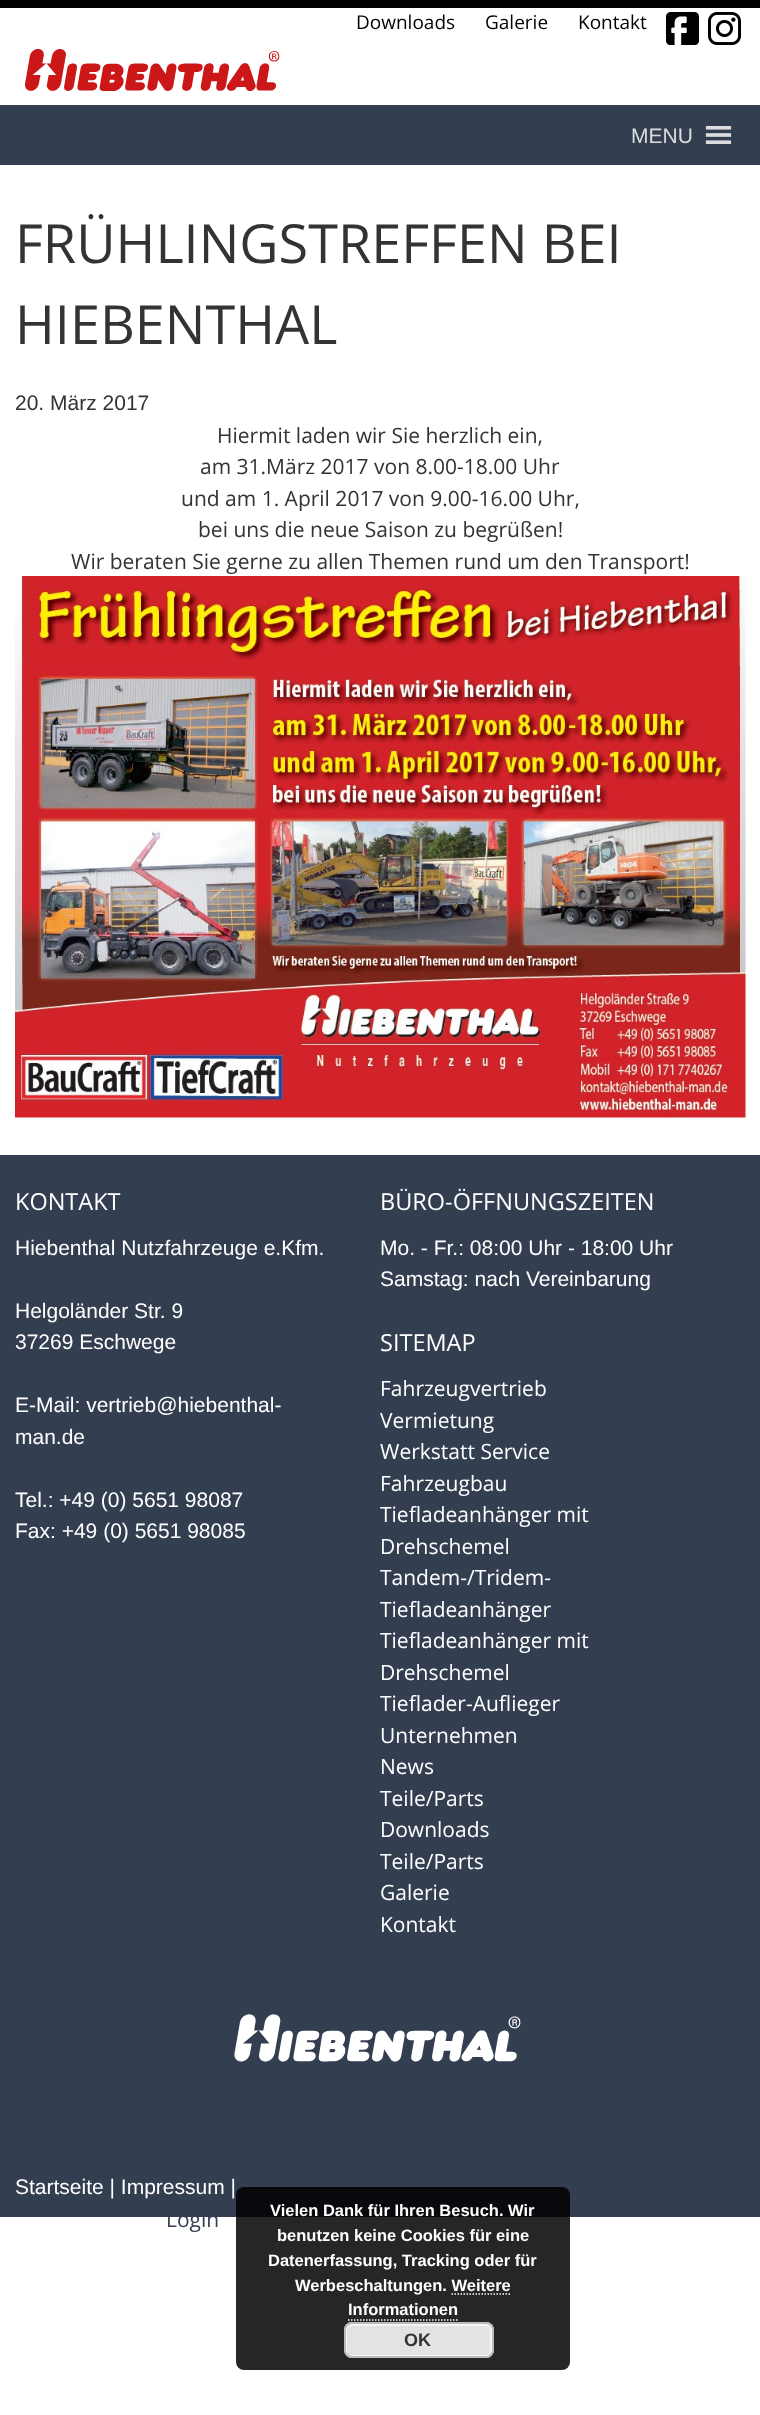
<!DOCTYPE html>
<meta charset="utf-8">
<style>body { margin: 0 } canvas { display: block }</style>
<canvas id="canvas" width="760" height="2415"></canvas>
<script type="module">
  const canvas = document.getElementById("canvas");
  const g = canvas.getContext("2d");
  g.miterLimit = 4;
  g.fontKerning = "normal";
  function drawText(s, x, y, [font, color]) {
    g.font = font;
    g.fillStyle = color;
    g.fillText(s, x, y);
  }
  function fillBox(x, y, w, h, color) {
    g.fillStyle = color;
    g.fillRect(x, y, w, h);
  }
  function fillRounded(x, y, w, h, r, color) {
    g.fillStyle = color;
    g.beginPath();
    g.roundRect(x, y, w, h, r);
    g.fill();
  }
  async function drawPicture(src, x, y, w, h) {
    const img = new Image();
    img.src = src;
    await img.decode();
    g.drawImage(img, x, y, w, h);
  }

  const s1 = ["19px Open Sans", "#000000"];
  const s2 = ["21px Liberation Sans", "#DDDDDD"];
  const s3 = ["54px Open Sans", "#333333"];
  const s4 = ["21px Liberation Sans", "#333333"];
  const s5 = ["21px Open Sans", "#333333"];
  const s6 = ["23.5px Open Sans", "#FFFFFF"];
  const s7 = ["21px Liberation Sans", "#FFFFFF"];
  const s8 = ["21px Open Sans", "#FFFFFF"];
  const s9 = ["21px Open Sans", "#333E50"];
  const s10 = ["bold 16.5px Liberation Sans", "#FFFFFF"];
  const s11 = ["bold 18px Liberation Sans", "#333333"];

  fillBox(0, 0, 760, 2415, "#FFFFFF");
  fillBox(0, 0, 760, 8, "#000000");
  drawText("Downloads", 356, 29, s1);
  drawText("Galerie", 485, 29, s1);
  drawText("Kontakt", 578, 29, s1);
  await drawPicture("pic1.png", 666, 12, 33, 33);
  await drawPicture("pic2.png", 708, 12, 33, 33);
  await drawPicture("pic3.png", 25, 49, 255, 42);
  fillBox(0, 105, 760, 60, "#333E50");
  drawText("MENU", 631, 143, s2);
  await drawPicture("pic4.png", 705, 126, 27, 18);
  drawText("FRÜHLINGSTREFFEN BEI", 15, 263, s3);
  drawText("HIEBENTHAL", 15, 344, s3);
  drawText("20. März 2017", 15, 410, s4);
  drawText("Hiermit laden wir Sie herzlich ein,", 217, 443, s5);
  drawText("am 31.März 2017 von 8.00-18.00 Uhr", 200, 474, s5);
  drawText("und am 1. April 2017 von 9.00-16.00 Uhr,", 181, 506, s5);
  drawText("bei uns die neue Saison zu begrüßen!", 198, 537, s5);
  drawText("Wir beraten Sie gerne zu allen Themen rund um den Transport!", 71, 569, s5);
  await drawPicture("pic5.png", 15, 576, 731, 542);
  fillBox(0, 1155, 760, 1062, "#333E50");
  drawText("KONTAKT", 15, 1210, s6);
  drawText("Hiebenthal Nutzfahrzeuge e.Kfm.", 15, 1255, s7);
  drawText("Helgoländer Str. 9", 15, 1318, s7);
  drawText("37269 Eschwege", 15, 1349, s7);
  drawText("E-Mail: vertrieb@hiebenthal-", 15, 1412, s7);
  drawText("man.de", 15, 1444, s7);
  drawText("Tel.: +49 (0) 5651 98087", 15, 1507, s7);
  drawText("Fax: +49 (0) 5651 98085", 15, 1538, s7);
  drawText("BÜRO-ÖFFNUNGSZEITEN", 380, 1210, s6);
  drawText("Mo. - Fr.: 08:00 Uhr - 18:00 Uhr", 380, 1255, s7);
  drawText("Samstag: nach Vereinbarung", 380, 1286, s7);
  drawText("SITEMAP", 380, 1351, s6);
  drawText("Fahrzeugvertrieb", 380, 1396, s8);
  drawText("Vermietung", 380, 1428, s8);
  drawText("Werkstatt Service", 380, 1459, s8);
  drawText("Fahrzeugbau", 380, 1491, s8);
  drawText("Tiefladeanhänger mit", 380, 1522, s8);
  drawText("Drehschemel", 380, 1554, s8);
  drawText("Tandem-/Tridem-", 380, 1585, s8);
  drawText("Tiefladeanhänger", 380, 1617, s8);
  drawText("Tiefladeanhänger mit", 380, 1648, s8);
  drawText("Drehschemel", 380, 1680, s8);
  drawText("Tieflader-Auflieger", 380, 1711, s8);
  drawText("Unternehmen", 380, 1743, s8);
  drawText("News", 380, 1774, s8);
  drawText("Teile/Parts", 380, 1806, s8);
  drawText("Downloads", 380, 1837, s8);
  drawText("Teile/Parts", 380, 1869, s8);
  drawText("Galerie", 380, 1900, s8);
  drawText("Kontakt", 380, 1932, s8);
  await drawPicture("pic6.png", 234, 2014, 287, 48);
  drawText("Startseite | Impressum |", 15, 2194, s7);
  drawText("Login", 166, 2227, s9);
  fillRounded(236, 2187, 334, 183, 8, "rgba(0, 0, 0, 0.85)");
  drawText("Vielen Dank für Ihren Besuch. Wir", 270, 2216, s10);
  drawText("benutzen keine Cookies für eine", 277, 2241, s10);
  drawText("Datenerfassung, Tracking oder für", 268, 2266, s10);
  drawText("Werbeschaltungen. Weitere", 295, 2291, s10);
  drawText("Informationen", 348, 2315, s10);
  g.beginPath();
  g.moveTo(451.5, 2294);
  g.lineTo(510, 2294);
  g.strokeStyle = "#FFFFFF";
  g.lineWidth = 1.5;
  g.setLineDash([1.5, 1.5]);
  g.stroke();
  g.beginPath();
  g.moveTo(348, 2320);
  g.lineTo(457.5, 2320);
  g.stroke();
  fillRounded(344, 2322, 150, 36, 8, "#E3E3E3");
  g.beginPath();
  g.roundRect(346, 2325, 145, 31, 5);
  g.strokeStyle = "#F6F6F6";
  g.lineWidth = 2;
  g.setLineDash([]);
  g.stroke();
  g.beginPath();
  g.roundRect(345, 2323, 148, 34, 7);
  g.strokeStyle = "#BBBBBB";
  g.stroke();
  drawText("OK", 404, 2346, s11);
</script>
